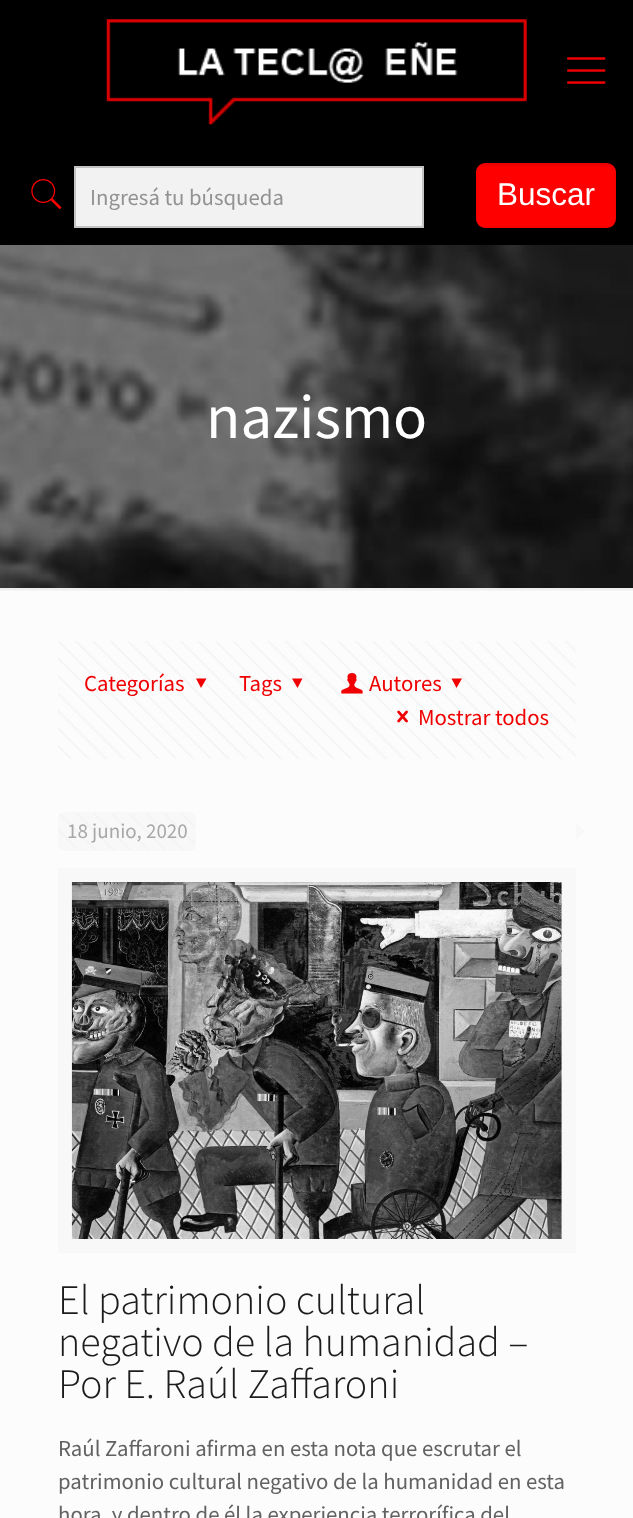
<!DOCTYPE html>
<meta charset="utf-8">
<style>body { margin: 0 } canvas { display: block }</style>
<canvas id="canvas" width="633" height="1518"></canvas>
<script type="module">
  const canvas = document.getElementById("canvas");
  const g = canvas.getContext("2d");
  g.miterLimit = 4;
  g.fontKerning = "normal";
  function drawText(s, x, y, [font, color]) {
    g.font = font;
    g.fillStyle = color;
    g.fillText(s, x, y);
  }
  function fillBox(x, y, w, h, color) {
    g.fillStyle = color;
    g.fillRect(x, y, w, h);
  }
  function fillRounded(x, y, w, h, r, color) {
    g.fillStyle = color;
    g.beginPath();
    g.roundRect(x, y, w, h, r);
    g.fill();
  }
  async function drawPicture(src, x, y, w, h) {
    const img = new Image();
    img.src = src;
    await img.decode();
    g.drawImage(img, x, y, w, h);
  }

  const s1 = ["22.75px Source Sans Pro", "#929292"];
  const s2 = ["31.5px Liberation Sans", "#FFFFFF"];
  const s3 = ["63px Source Sans Pro", "#FFFFFF"];
  const s4 = ["22.75px Source Sans Pro", "#F00002"];
  const s5 = ["21px Source Sans Pro", "#A8A8A8"];
  const s6 = ["300 42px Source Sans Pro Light", "#1C1C1C"];
  const s7 = ["22.75px Source Sans Pro", "#626262"];

  fillBox(0, 0, 633, 1518, "#FCFCFC");
  await drawPicture("pic1.png", 0, 245, 633, 343);
  fillBox(0, 0, 633, 245, "#000000");
  await drawPicture("pic2.png", 106, 19, 421, 106);
  await drawPicture("pic3.png", 567, 57, 39, 27);
  await drawPicture("pic4.png", 31, 179, 31, 31);
  g.fillStyle = "#F2F2F2";
  g.beginPath();
  g.rect(75, 167, 348, 60);
  g.fill();
  g.strokeStyle = "#C4C4C4";
  g.lineWidth = 2;
  g.stroke();
  drawText("Ingresá tu búsqueda", 90, 205, s1);
  fillRounded(476, 163, 140, 65, 9, "#FF0000");
  await drawPicture("pic5.png", 478, 163, 136, 4);
  g.strokeStyle = "rgba(0, 0, 0, 0.03)";
  g.strokeRect(477, 164, 138, 63);
  drawText("Buscar", 497, 205, s2);
  drawText("nazismo", 206, 438, s3);
  await drawPicture("pic6.png", 0, 588, 633, 3);
  await drawPicture("pic7.png", 58, 641, 518, 118);
  drawText("Categorías", 84, 691, s4);
  g.beginPath();
  g.moveTo(206.5, 678.5);
  g.lineTo(201, 688);
  g.lineTo(196, 678.5);
  g.closePath();
  g.fill();
  drawText("Tags", 239, 691, s4);
  g.beginPath();
  g.moveTo(302.5, 678.5);
  g.lineTo(297.5, 688);
  g.lineTo(292, 678.5);
  g.closePath();
  g.fill();
  await drawPicture("pic8.png", 341, 673, 22, 21);
  drawText("Autores", 369, 691, s4);
  g.beginPath();
  g.moveTo(462, 678.5);
  g.lineTo(456.5, 688);
  g.lineTo(451.5, 678.5);
  g.closePath();
  g.fill();
  await drawPicture("pic9.png", 397, 710, 11, 13);
  drawText("Mostrar todos", 418, 725, s4);
  fillRounded(58, 812, 138, 39, 7, "#F8F8F8");
  await drawPicture("pic10.png", 58, 814, 136, 36);
  drawText("18 junio, 2020", 67, 838, s5);
  g.fillStyle = "#F8F8F8";
  g.beginPath();
  g.moveTo(576, 840);
  g.lineTo(576, 822.5);
  g.lineTo(584.5, 831);
  g.closePath();
  g.fill();
  g.strokeStyle = "#F8F8F8";
  g.lineWidth = 14;
  g.strokeRect(65, 875, 504, 371);
  await drawPicture("pic11.png", 71, 882, 491, 357);
  drawText("El patrimonio cultural", 58, 1314, s6);
  drawText("negativo de la humanidad –", 58, 1356, s6);
  drawText("Por E. Raúl Zaffaroni", 58, 1398, s6);
  drawText("Raúl Zaffaroni afirma en esta nota que escrutar el", 58, 1456, s7);
  drawText("patrimonio cultural negativo de la humanidad en esta", 58, 1489, s7);
  drawText("hora, y dentro de él la experiencia terrorífica del", 58, 1522, s7);
</script>
